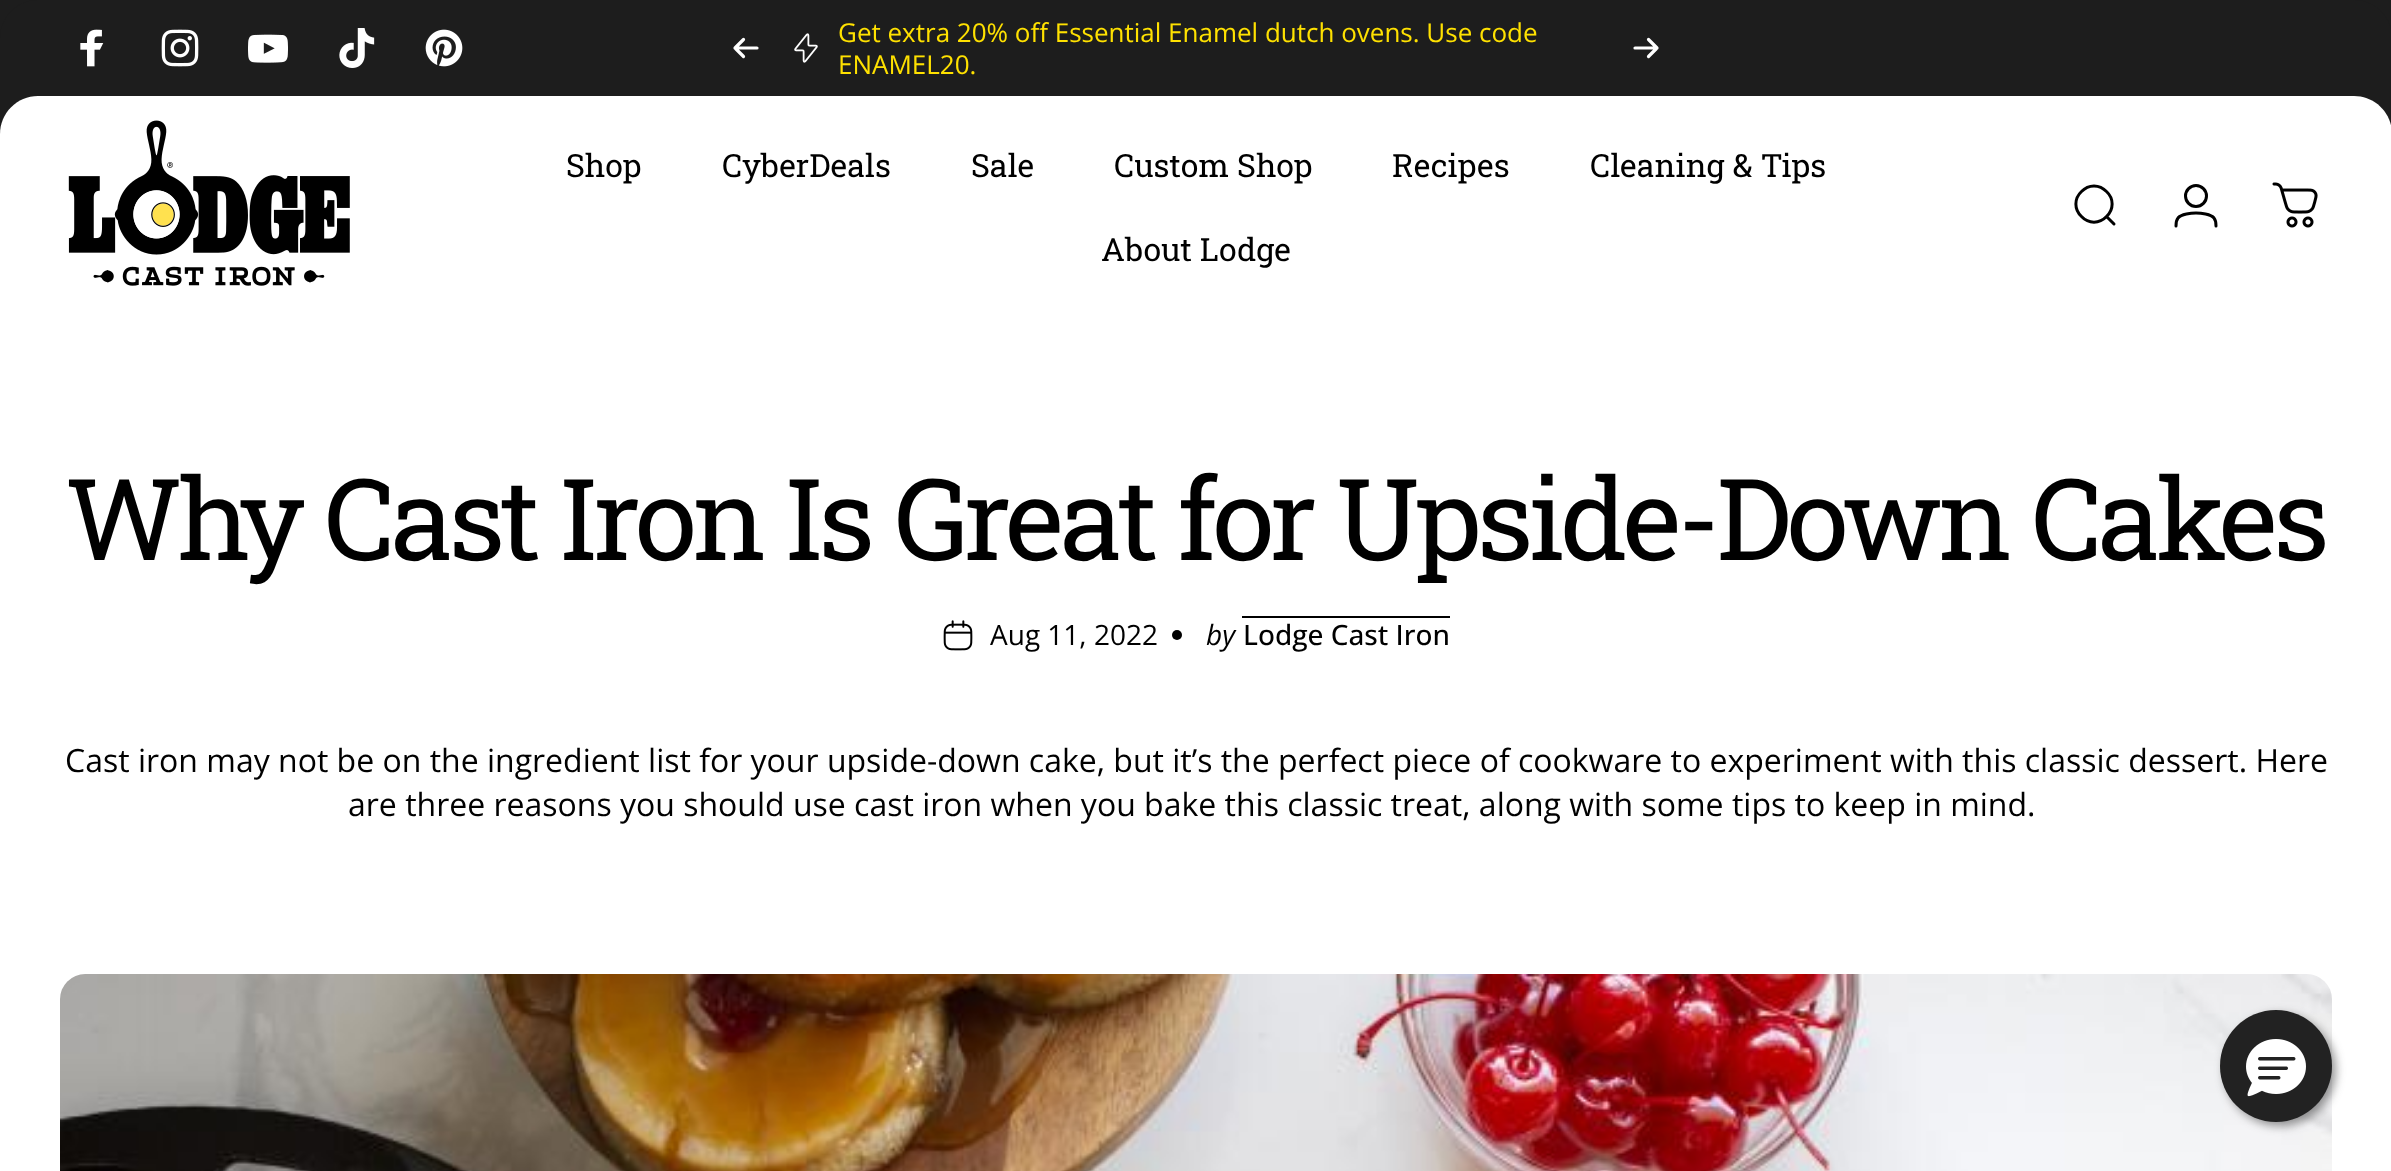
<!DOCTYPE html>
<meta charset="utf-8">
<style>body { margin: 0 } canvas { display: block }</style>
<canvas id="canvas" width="2391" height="1171"></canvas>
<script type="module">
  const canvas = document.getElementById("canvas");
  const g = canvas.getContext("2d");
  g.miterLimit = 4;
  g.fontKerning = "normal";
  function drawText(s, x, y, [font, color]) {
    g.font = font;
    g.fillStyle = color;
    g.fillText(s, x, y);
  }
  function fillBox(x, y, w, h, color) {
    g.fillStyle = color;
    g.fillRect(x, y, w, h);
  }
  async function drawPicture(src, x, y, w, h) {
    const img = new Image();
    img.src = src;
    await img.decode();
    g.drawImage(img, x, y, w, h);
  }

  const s1 = ["26px Open Sans", "#FFE100"];
  const s2 = ["32px Roboto Slab", "#000000"];
  const s3 = ["113.1px Roboto Slab", "#000000"];
  const s4 = ["28px Open Sans", "#000000"];
  const s5 = ["italic 28px Open Sans", "#000000"];
  const s6 = ["500 28px Open Sans", "#000000"];
  const s7 = ["32px Open Sans", "#000000"];

  fillBox(0, 0, 2391, 1171, "#FFFFFF");
  fillBox(0, 0, 2391, 38, "#1D1D1D");
  g.beginPath();
  g.moveTo(38, 0);
  g.lineTo(2354, 0);
  g.bezierCurveTo(2375, 0, 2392, 17, 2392, 38);
  g.lineTo(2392, 134);
  g.lineTo(0, 134);
  g.lineTo(0, 38);
  g.bezierCurveTo(0, 17, 17, 0, 38, 0);
  g.closePath();
  g.fill();
  await drawPicture("pic1.png", 80, 29, 24, 38);
  await drawPicture("pic2.png", 161, 29, 38, 38);
  await drawPicture("pic3.png", 248, 34, 40, 29);
  await drawPicture("pic4.png", 339, 28, 36, 40);
  await drawPicture("pic5.png", 425, 29, 38, 38);
  g.beginPath();
  g.moveTo(743.5, 39.5);
  g.lineTo(735, 48);
  g.moveTo(735, 48);
  g.lineTo(743.5, 56.5);
  g.moveTo(735, 48);
  g.lineTo(757, 48);
  g.strokeStyle = "#FFFFFF";
  g.lineWidth = 3.2;
  g.lineCap = "round";
  g.lineJoin = "round";
  g.stroke();
  await drawPicture("pic6.png", 794, 33, 24, 30);
  drawText("Get extra 20% off Essential Enamel dutch ovens. Use code", 838, 42, s1);
  drawText("ENAMEL20.", 838, 74, s1);
  g.beginPath();
  g.moveTo(1635, 48);
  g.lineTo(1657, 48);
  g.moveTo(1657, 48);
  g.lineTo(1648.5, 39.5);
  g.moveTo(1657, 48);
  g.lineTo(1648.5, 56.5);
  g.stroke();
  g.fillStyle = "#FFFFFF";
  g.beginPath();
  g.moveTo(38, 96);
  g.lineTo(2354, 96);
  g.bezierCurveTo(2375, 96, 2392, 113, 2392, 134);
  g.lineTo(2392, 316);
  g.lineTo(0, 316);
  g.lineTo(0, 134);
  g.bezierCurveTo(0, 113, 17, 96, 38, 96);
  g.closePath();
  g.fill();
  await drawPicture("pic7.png", 68, 120, 282, 166);
  drawText("Shop", 566, 177, s2);
  drawText("CyberDeals", 722, 177, s2);
  drawText("Sale", 971, 177, s2);
  drawText("Custom Shop", 1114, 177, s2);
  drawText("Recipes", 1392, 177, s2);
  drawText("Cleaning & Tips", 1590, 177, s2);
  drawText("About Lodge", 1101, 261, s2);
  g.beginPath();
  g.moveTo(2114, 224);
  g.lineTo(2106.5, 216.5);
  g.moveTo(2106.5, 216.5);
  g.bezierCurveTo(2114, 209.5, 2114, 198.5, 2106.5, 191.5);
  g.bezierCurveTo(2099.5, 184, 2088.5, 184, 2081.5, 191.5);
  g.bezierCurveTo(2074, 198.5, 2074, 209.5, 2081.5, 216.5);
  g.bezierCurveTo(2088.5, 224, 2099.5, 224, 2106.5, 216.5);
  g.closePath();
  g.strokeStyle = "#000000";
  g.lineWidth = 3;
  g.lineJoin = "miter";
  g.stroke();
  g.beginPath();
  g.arc(2196, 196, 10.5, 0, Math.PI * 2);
  g.stroke();
  g.beginPath();
  g.moveTo(2196, 213);
  g.bezierCurveTo(2200.5, 213, 2211, 214, 2214, 218);
  g.bezierCurveTo(2216, 220.5, 2216, 223, 2216, 226);
  g.moveTo(2196, 213);
  g.bezierCurveTo(2191.5, 213, 2181, 214, 2178, 218);
  g.bezierCurveTo(2176, 220.5, 2176, 223, 2176, 226);
  g.stroke();
  await drawPicture("pic8.png", 2272, 182, 46, 46);
  g.letterSpacing = "-4.55px";
  drawText("Why Cast Iron Is Great for Upside-Down Cakes", 65, 560, s3);
  await drawPicture("pic9.png", 943, 620, 30, 31);
  g.letterSpacing = "0px";
  drawText("Aug 11, 2022", 990, 645, s4);
  g.beginPath();
  g.arc(1177, 635, 5, 0, Math.PI * 2);
  g.fill();
  drawText("by", 1206, 645, s5);
  drawText("Lodge Cast Iron", 1243, 645, s6);
  fillBox(1242, 616, 208, 2, "#000000");
  drawText("Cast iron may not be on the ingredient list for your upside-down cake, but it’s the perfect piece of cookware to experiment with this classic dessert. Here", 65, 772, s7);
  drawText("are three reasons you should use cast iron when you bake this classic treat, along with some tips to keep in mind.", 348, 816, s7);
  await drawPicture("pic10.png", 60, 974, 2272, 197);
  g.fillStyle = "rgba(45, 45, 45, 0.5)";
  g.filter = "blur(5px)";
  g.beginPath();
  g.roundRect(2224, 1014, 112, 112, 56);
  g.fill();
  g.filter = "none";
  g.fillStyle = "#222222";
  g.beginPath();
  g.arc(2276, 1066, 56, 0, Math.PI * 2);
  g.fill();
  await drawPicture("pic11.png", 2246, 1039, 60, 58);
</script>
